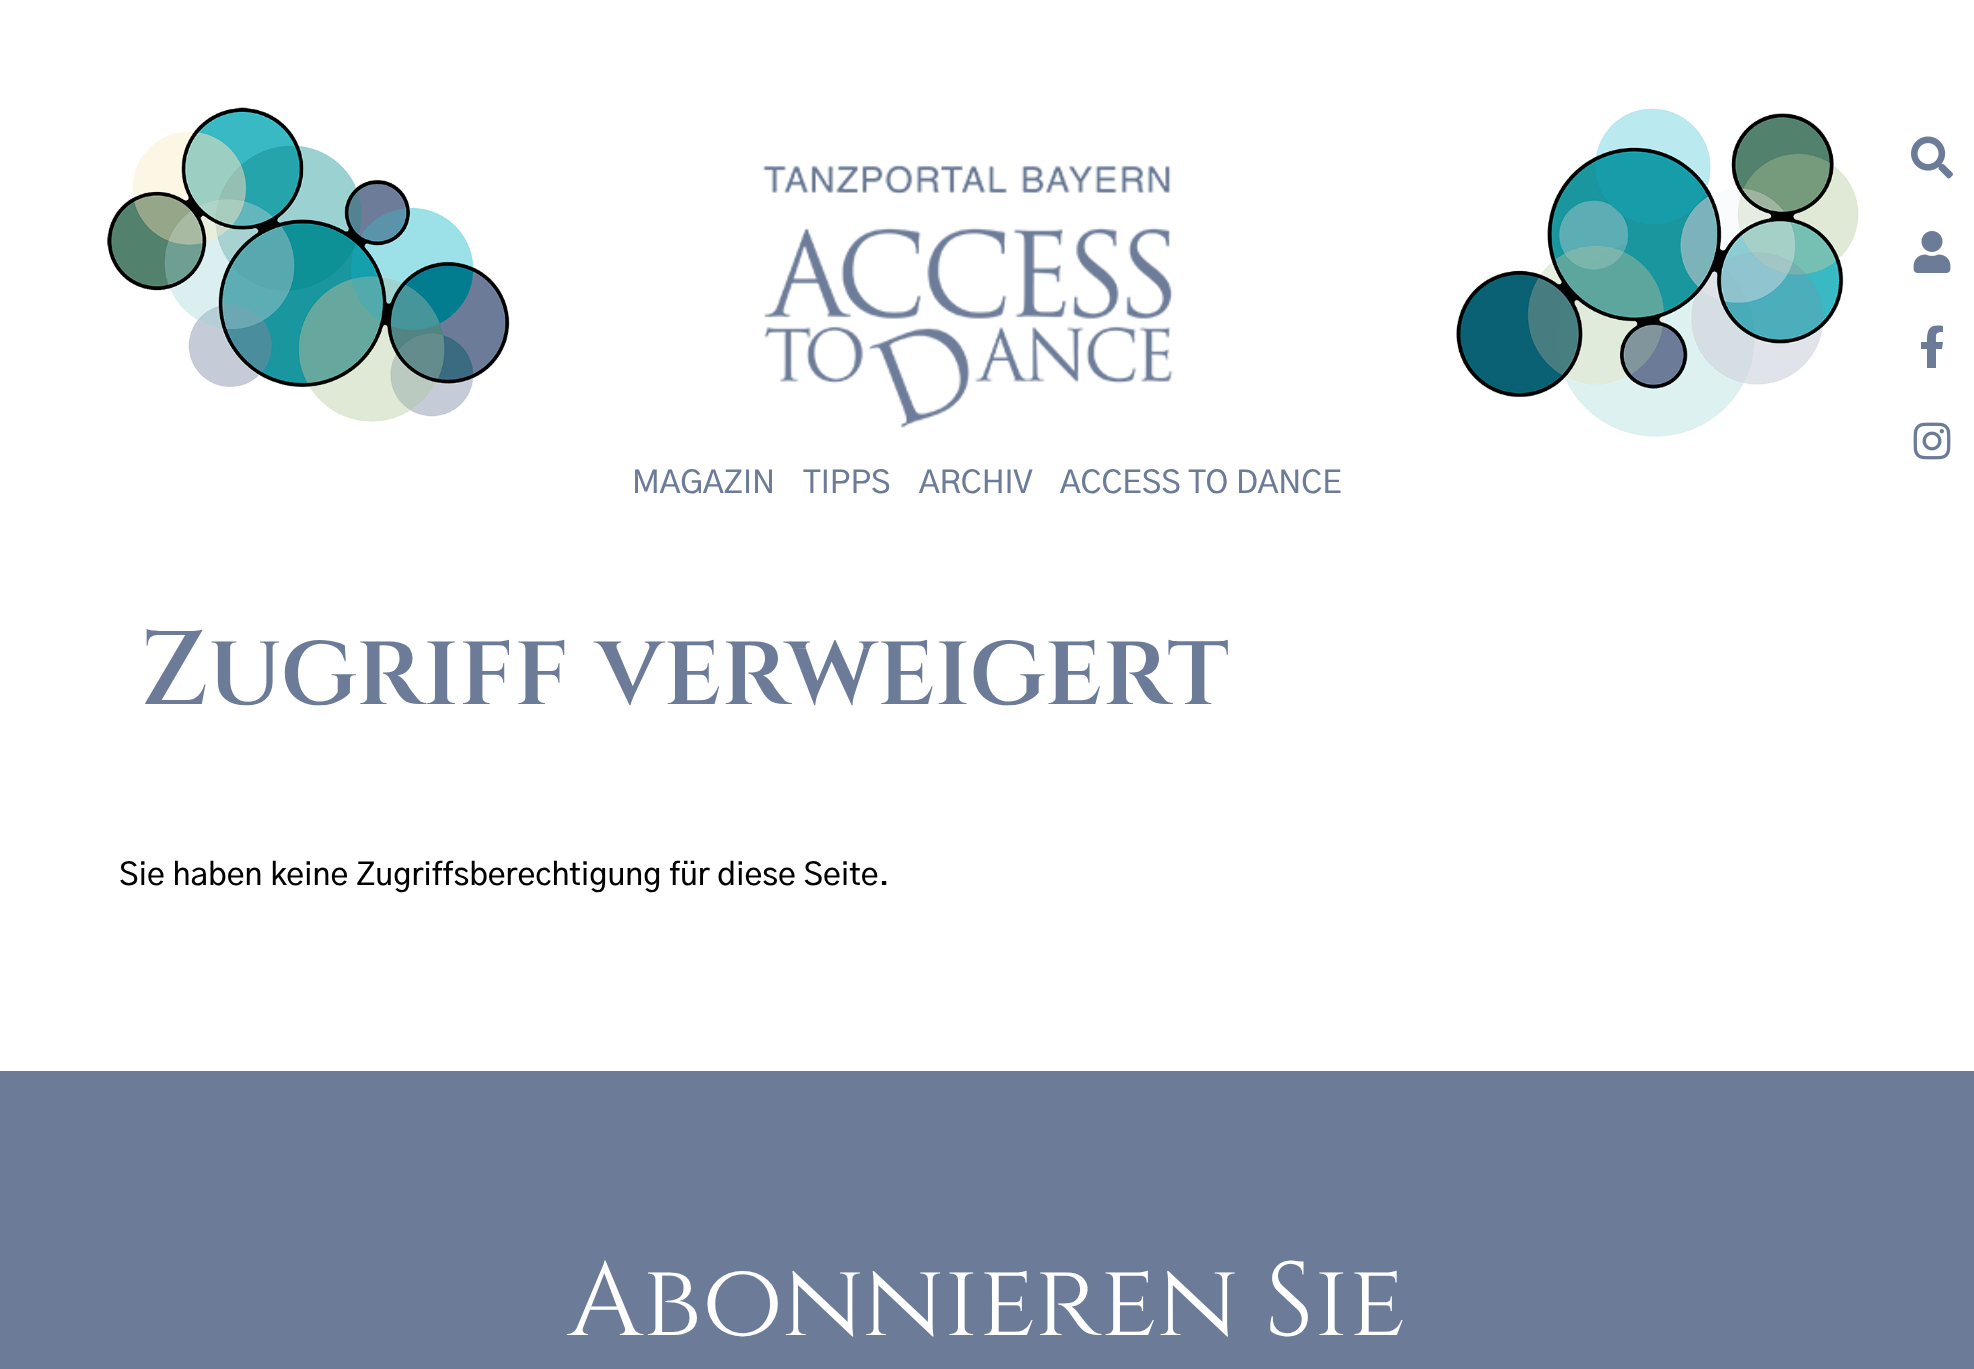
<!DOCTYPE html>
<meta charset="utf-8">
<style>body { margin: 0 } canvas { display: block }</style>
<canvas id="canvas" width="1974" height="1369"></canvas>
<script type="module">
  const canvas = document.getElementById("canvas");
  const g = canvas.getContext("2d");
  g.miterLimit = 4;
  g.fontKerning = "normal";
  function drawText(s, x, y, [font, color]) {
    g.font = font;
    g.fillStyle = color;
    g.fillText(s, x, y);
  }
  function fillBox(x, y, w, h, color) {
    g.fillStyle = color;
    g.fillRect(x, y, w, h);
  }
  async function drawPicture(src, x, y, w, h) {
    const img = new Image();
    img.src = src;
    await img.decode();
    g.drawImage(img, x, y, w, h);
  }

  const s1 = ["500 31.5px 'Gothic A1'", "#6C7C98"];
  const s2 = ["600 104.25px Cinzel", "#6C7C98"];
  const s3 = ["500 31.5px 'Gothic A1'", "#000000"];
  const s4 = ["104.25px Cinzel", "#FFFFFF"];

  fillBox(0, 0, 1974, 1369, "#FFFFFF");
  await drawPicture("pic1.png", 1911, 136, 42, 43);
  await drawPicture("pic2.png", 1913, 231, 38, 42);
  g.fillStyle = "#6C7C98";
  g.beginPath();
  g.moveTo(1942, 349);
  g.lineTo(1943, 342);
  g.lineTo(1936, 342);
  g.bezierCurveTo(1936, 334, 1935, 332, 1943, 332);
  g.lineTo(1943, 326);
  g.bezierCurveTo(1929, 324, 1927, 329, 1927, 342);
  g.lineTo(1921, 342);
  g.lineTo(1921, 349);
  g.lineTo(1927, 349);
  g.lineTo(1927, 368);
  g.lineTo(1936, 368);
  g.lineTo(1936, 349);
  g.closePath();
  g.fill();
  await drawPicture("pic3.png", 1913, 422, 38, 38);
  await drawPicture("pic4.png", 107, 107, 403, 315);
  await drawPicture("pic5.png", 762, 164, 411, 264);
  await drawPicture("pic6.png", 1456, 108, 403, 329);
  drawText("MAGAZIN", 632, 493, s1);
  drawText("TIPPS", 803, 493, s1);
  drawText("ARCHIV", 919, 493, s1);
  drawText("ACCESS TO DANCE", 1060, 493, s1);
  drawText("Zugriff verweigert", 140, 704, s2);
  drawText("Sie haben keine Zugriffsberechtigung für diese Seite.", 119, 885, s3);
  fillBox(0, 1071, 1974, 298, "#6C7C98");
  drawText("Abonnieren Sie", 568, 1335, s4);
</script>
